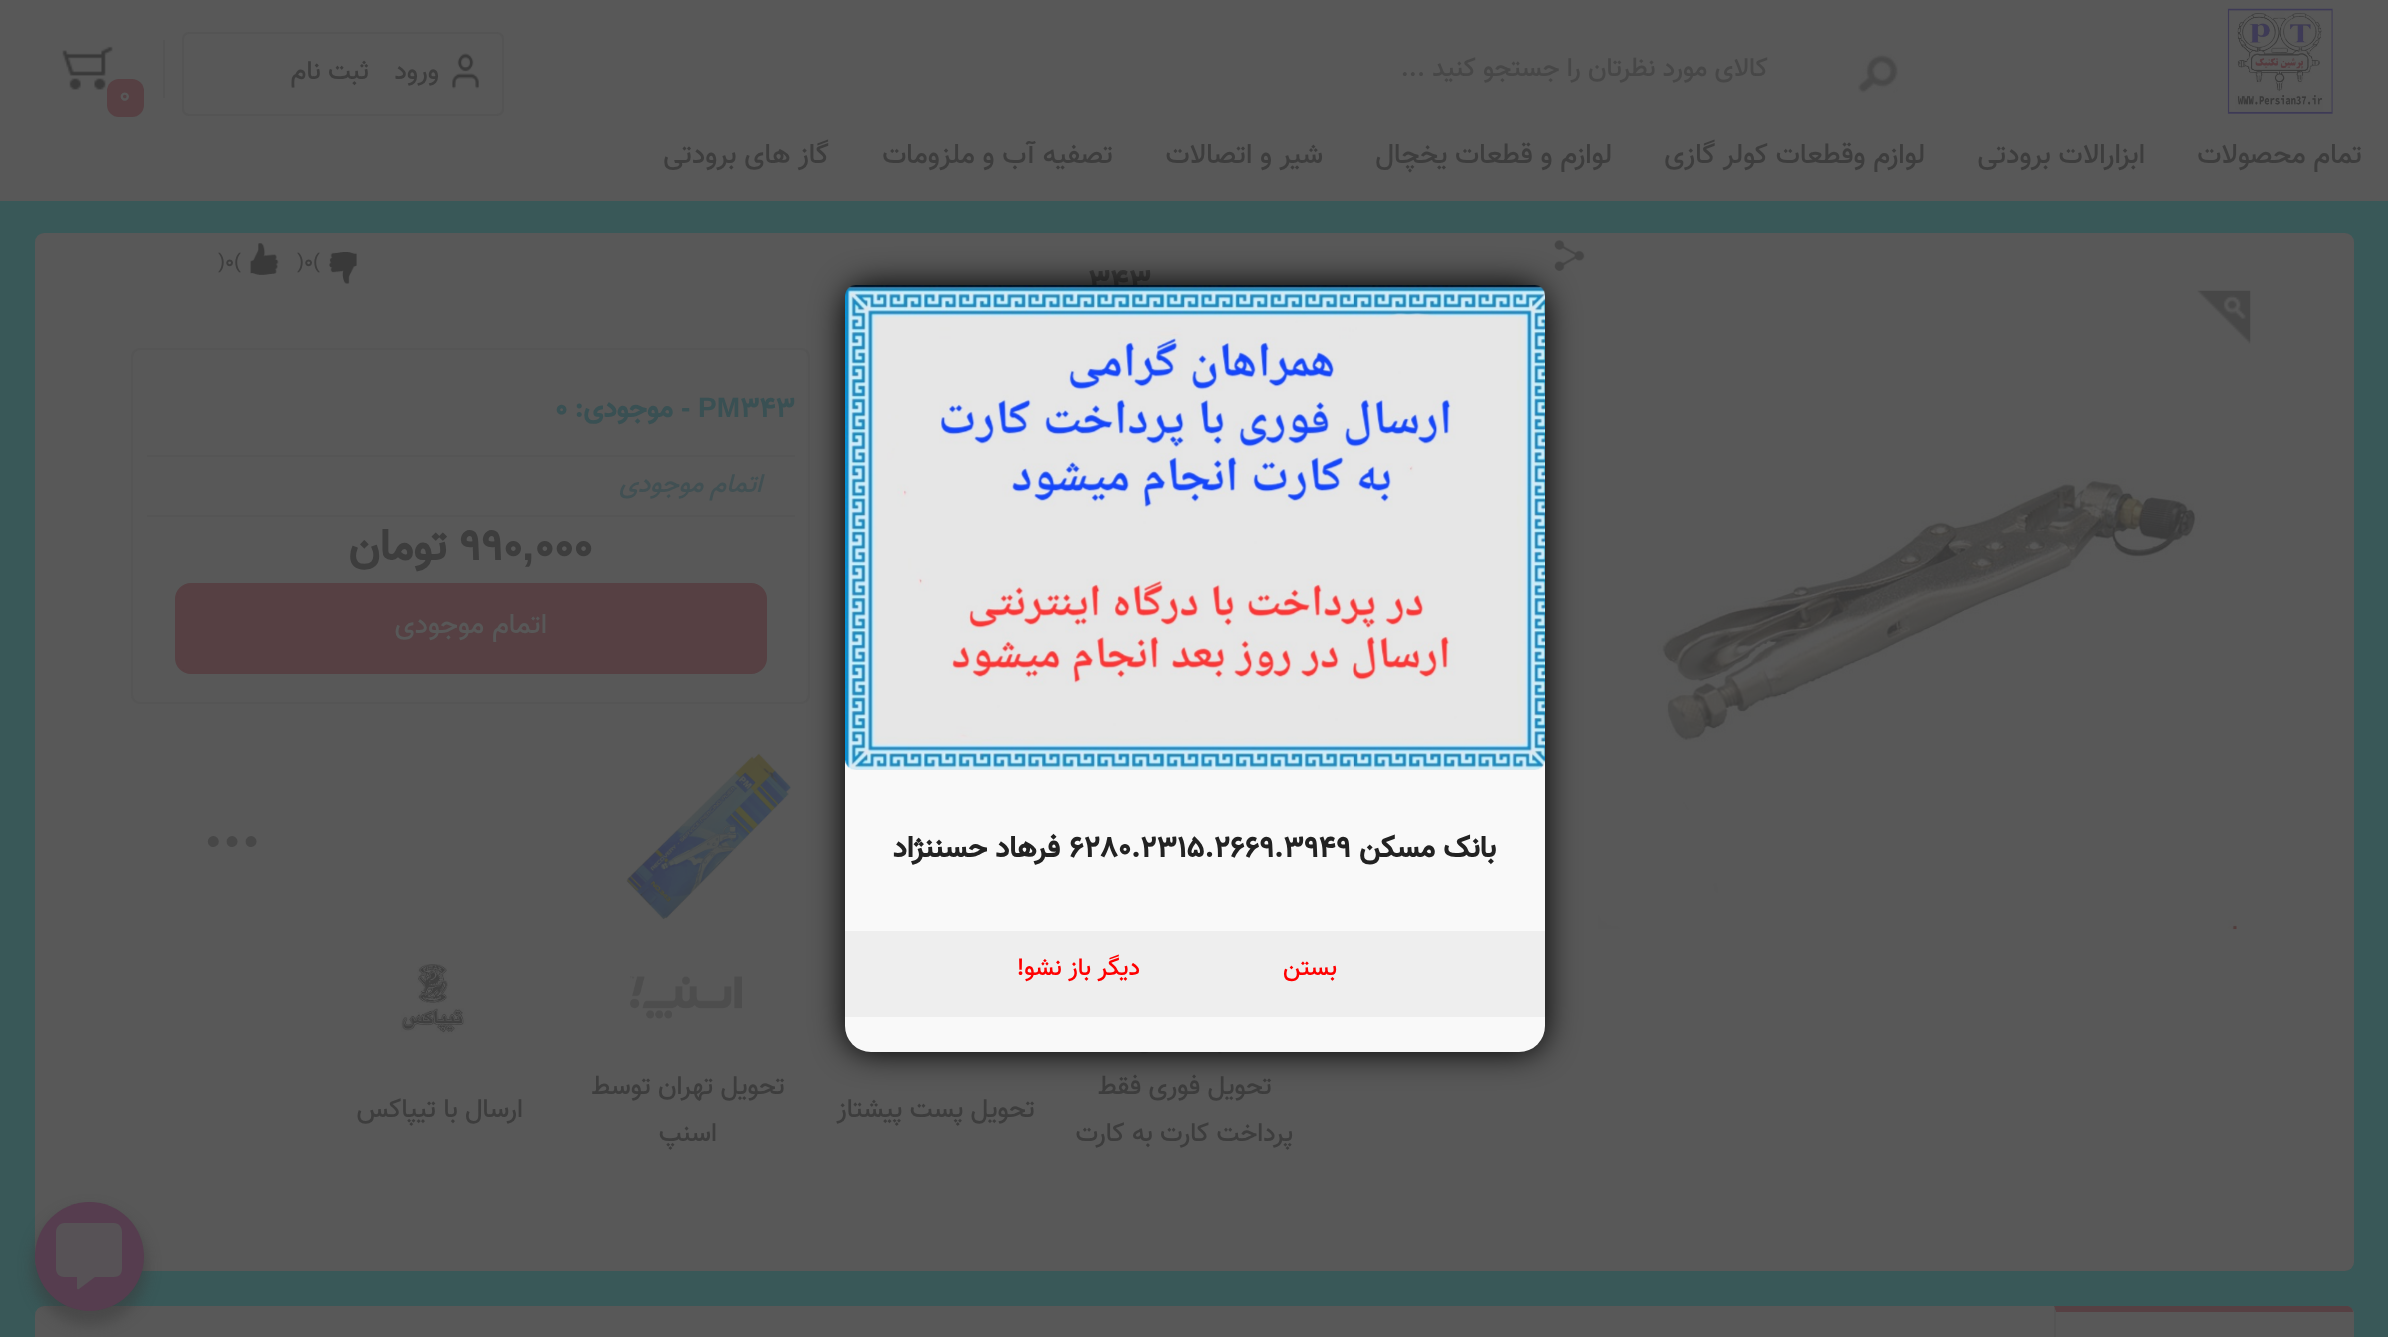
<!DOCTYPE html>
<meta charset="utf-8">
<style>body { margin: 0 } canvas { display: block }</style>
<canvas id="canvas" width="2388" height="1337"></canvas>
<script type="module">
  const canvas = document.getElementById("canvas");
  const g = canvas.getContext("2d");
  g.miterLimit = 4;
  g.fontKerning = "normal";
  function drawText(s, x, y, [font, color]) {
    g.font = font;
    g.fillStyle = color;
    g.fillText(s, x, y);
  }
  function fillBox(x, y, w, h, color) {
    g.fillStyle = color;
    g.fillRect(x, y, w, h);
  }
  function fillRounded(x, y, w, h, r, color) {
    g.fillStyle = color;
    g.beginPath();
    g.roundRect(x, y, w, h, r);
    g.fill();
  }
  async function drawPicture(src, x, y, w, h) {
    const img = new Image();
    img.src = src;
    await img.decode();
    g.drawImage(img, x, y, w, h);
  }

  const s1 = ["500 26.25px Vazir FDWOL", "#474747"];
  const s2 = ["500 26.25px Vazir FDWOL", "#3D3D3D"];
  const s3 = ["500 26.25px Vazir FDWOL", "#585858"];
  const s4 = ["500 28px Vazir FDWOL", "#3D3D3D"];
  const s5 = ["21px Liberation Sans", "#3D3D3D"];
  const s6 = ["500 21px Vazir FDWOL", "#3D3D3D"];
  const s7 = ["bold 32px Vazir FDWOL", "#3D3D3D"];
  const s8 = ["bold 28px Vazir FDWOL", "#395053"];
  const s9 = ["bold 28px Liberation Sans", "#395053"];
  const s10 = ["italic 500 26.25px Vazir FDWOL", "#415053"];
  const s11 = ["bold 44px Vazir FDWOL", "#3D3D3D"];
  const s12 = ["bold 44px Liberation Sans", "#3D3D3D"];
  const s13 = ["500 28px Vazir FDWOL", "#585858"];
  const s14 = ["bold 61px Vazir FDWOL", "#474747"];
  const s15 = ["bold 29.75px Vazir FDWOL", "#222222"];
  const s16 = ["500 24.5px Vazir FDWOL", "#FF0000"];

  fillBox(0, 0, 2388, 1337, "#395858");
  fillBox(0, 0, 2388, 201, "#585858");
  await drawPicture("pic1.png", 2227, 8, 106, 106);
  await drawPicture("pic2.png", 1858, 54, 40, 39);
  g.direction = "rtl";
  drawText("کالای مورد نظرتان را جستجو کنید ...", 1768, 76, s1);
  g.beginPath();
  g.roundRect(183, 33, 320, 82, 6);
  g.strokeStyle = "#545454";
  g.lineWidth = 2;
  g.stroke();
  await drawPicture("pic3.png", 452, 53, 27, 36);
  drawText("ورود", 439, 79, s2);
  drawText("ثبت نام", 369, 79, s2);
  fillBox(163, 40, 2, 58, "#545454");
  await drawPicture("pic4.png", 62, 46, 51, 44);
  fillRounded(107, 79, 37, 38, 12, "#564043");
  g.direction = "ltr";
  drawText("0", 119, 103, s3);
  g.direction = "rtl";
  drawText("تمام محصولات", 2362, 163, s4);
  drawText("ابزارالات برودتی", 2145, 163, s4);
  drawText("لوازم وقطعات کولر گازی", 1925, 163, s4);
  drawText("لوازم و قطعات یخچال", 1612, 163, s4);
  drawText("شیر و اتصالات", 1323, 163, s4);
  drawText("تصفیه آب و ملزومات", 1113, 163, s4);
  drawText("گاز های برودتی", 829, 163, s4);
  fillRounded(35, 233, 2319, 1038, 9, "#585858");
  await drawPicture("pic5.png", 1554, 240, 31, 31);
  await drawPicture("pic6.png", 2197, 290, 54, 54);
  await drawPicture("pic7.png", 1598, 478, 639, 452);
  await drawPicture("pic8.png", 329, 252, 28, 32);
  g.direction = "ltr";
  drawText("(", 313, 268, s5);
  drawText("0", 304, 268, s6);
  drawText(")", 297, 268, s5);
  await drawPicture("pic9.png", 250, 243, 29, 32);
  drawText("(", 234, 268, s5);
  drawText("0", 225, 268, s6);
  drawText(")", 218, 268, s5);
  drawText("343", 1088, 292, s7);
  g.beginPath();
  g.roundRect(132, 349, 677, 354, 8);
  g.strokeStyle = "#555555";
  g.stroke();
  fillBox(147, 455, 648, 2, "#555555");
  drawText("343", 740, 417, s8);
  drawText("PM", 698, 417, s9);
  drawText("-", 681, 417, s9);
  g.direction = "rtl";
  drawText("موجودی:", 673, 417, s8);
  g.direction = "ltr";
  drawText("0", 555, 417, s8);
  fillBox(147, 515, 648, 2, "#555555");
  g.direction = "rtl";
  drawText("اتمام موجودی", 762, 492, s10);
  g.direction = "ltr";
  drawText("990 000", 459, 560, s11);
  g.direction = "rtl";
  drawText("تومان", 447, 560, s11);
  g.direction = "ltr";
  drawText(",", 522, 560, s12);
  g.fillStyle = "#564043";
  g.beginPath();
  g.roundRect(176, 584, 590, 89, 15);
  g.fill();
  g.strokeStyle = "#564043";
  g.stroke();
  g.direction = "rtl";
  drawText("اتمام موجودی", 547, 633, s13);
  await drawPicture("pic10.png", 842, 801, 3, 121);
  await drawPicture("pic11.png", 626, 753, 165, 167);
  g.direction = "ltr";
  drawText("...", 203, 847, s14);
  await drawPicture("pic12.png", 1138, 1052, 87, 2);
  g.direction = "rtl";
  drawText("تحویل فوری فقط", 1272, 1094, s2);
  drawText("پرداخت کارت به کارت", 1293, 1141, s2);
  drawText("تحویل پست پیشتاز", 1035, 1117, s2);
  await drawPicture("pic13.png", 630, 976, 112, 43);
  drawText("تحویل تهران توسط", 785, 1094, s2);
  drawText("اسنپ", 717, 1141, s2);
  await drawPicture("pic14.png", 401, 964, 65, 70);
  drawText("ارسال با تیپاکس", 523, 1117, s2);
  fillRounded(35, 1306, 2319, 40, 9, "#585858");
  g.beginPath();
  g.moveTo(2055, 1306);
  g.lineTo(2348, 1306);
  g.bezierCurveTo(2351, 1307, 2354, 1310, 2354, 1314);
  g.lineTo(2354, 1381);
  g.bezierCurveTo(2354, 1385, 2350, 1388, 2345, 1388);
  g.lineTo(2055, 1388);
  g.closePath();
  g.fill();
  g.fillStyle = "#564043";
  g.beginPath();
  g.moveTo(2054, 1306);
  g.lineTo(2348, 1306);
  g.bezierCurveTo(2351, 1307, 2353, 1309, 2353, 1312);
  g.lineTo(2056, 1312);
  g.closePath();
  g.fill();
  g.fillStyle = "#545454";
  g.beginPath();
  g.moveTo(2056, 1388);
  g.lineTo(2054, 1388);
  g.lineTo(2054, 1306);
  g.lineTo(2056, 1312);
  g.closePath();
  g.fill();
  g.fillStyle = "#000000";
  g.filter = "blur(16px)";
  g.beginPath();
  g.roundRect(845, 285, 700, 767, 26);
  g.fill();
  g.filter = "none";
  fillRounded(845, 285, 700, 767, 26, "#F9F9F9");
  await drawPicture("pic15.png", 845, 285, 700, 485);
  drawText("بانک مسکن", 1496, 857, s15);
  g.direction = "ltr";
  drawText("6280.2315.2669.3949", 1069, 857, s15);
  g.direction = "rtl";
  drawText("فرهاد حسننژاد", 1060, 857, s15);
  fillBox(845, 931, 700, 86, "#EEEEEE");
  drawText("بستن", 1337, 975, s16);
  drawText("دیگر باز نشو!", 1140, 975, s16);
  g.fillStyle = "rgba(57, 57, 57, 0.48)";
  g.filter = "blur(7px)";
  g.beginPath();
  g.roundRect(32, 1209, 115, 116, 57.5);
  g.fill();
  g.filter = "none";
  g.fillStyle = "#563D4F";
  g.beginPath();
  g.arc(89.5, 1256.5, 54.5, 0, Math.PI * 2);
  g.fill();
  g.fillStyle = "#575256";
  g.beginPath();
  g.moveTo(114, 1223);
  g.lineTo(64, 1223);
  g.bezierCurveTo(60, 1223, 56, 1227, 56, 1232);
  g.lineTo(56, 1269);
  g.bezierCurveTo(56, 1274, 60, 1277, 64, 1277);
  g.lineTo(77, 1277);
  g.lineTo(77, 1288);
  g.bezierCurveTo(77, 1289, 78, 1290, 79, 1289);
  g.lineTo(95, 1277);
  g.lineTo(114, 1277);
  g.bezierCurveTo(119, 1277, 122, 1274, 122, 1269);
  g.lineTo(122, 1232);
  g.bezierCurveTo(122, 1227, 119, 1223, 114, 1223);
  g.closePath();
  g.fill();
</script>
